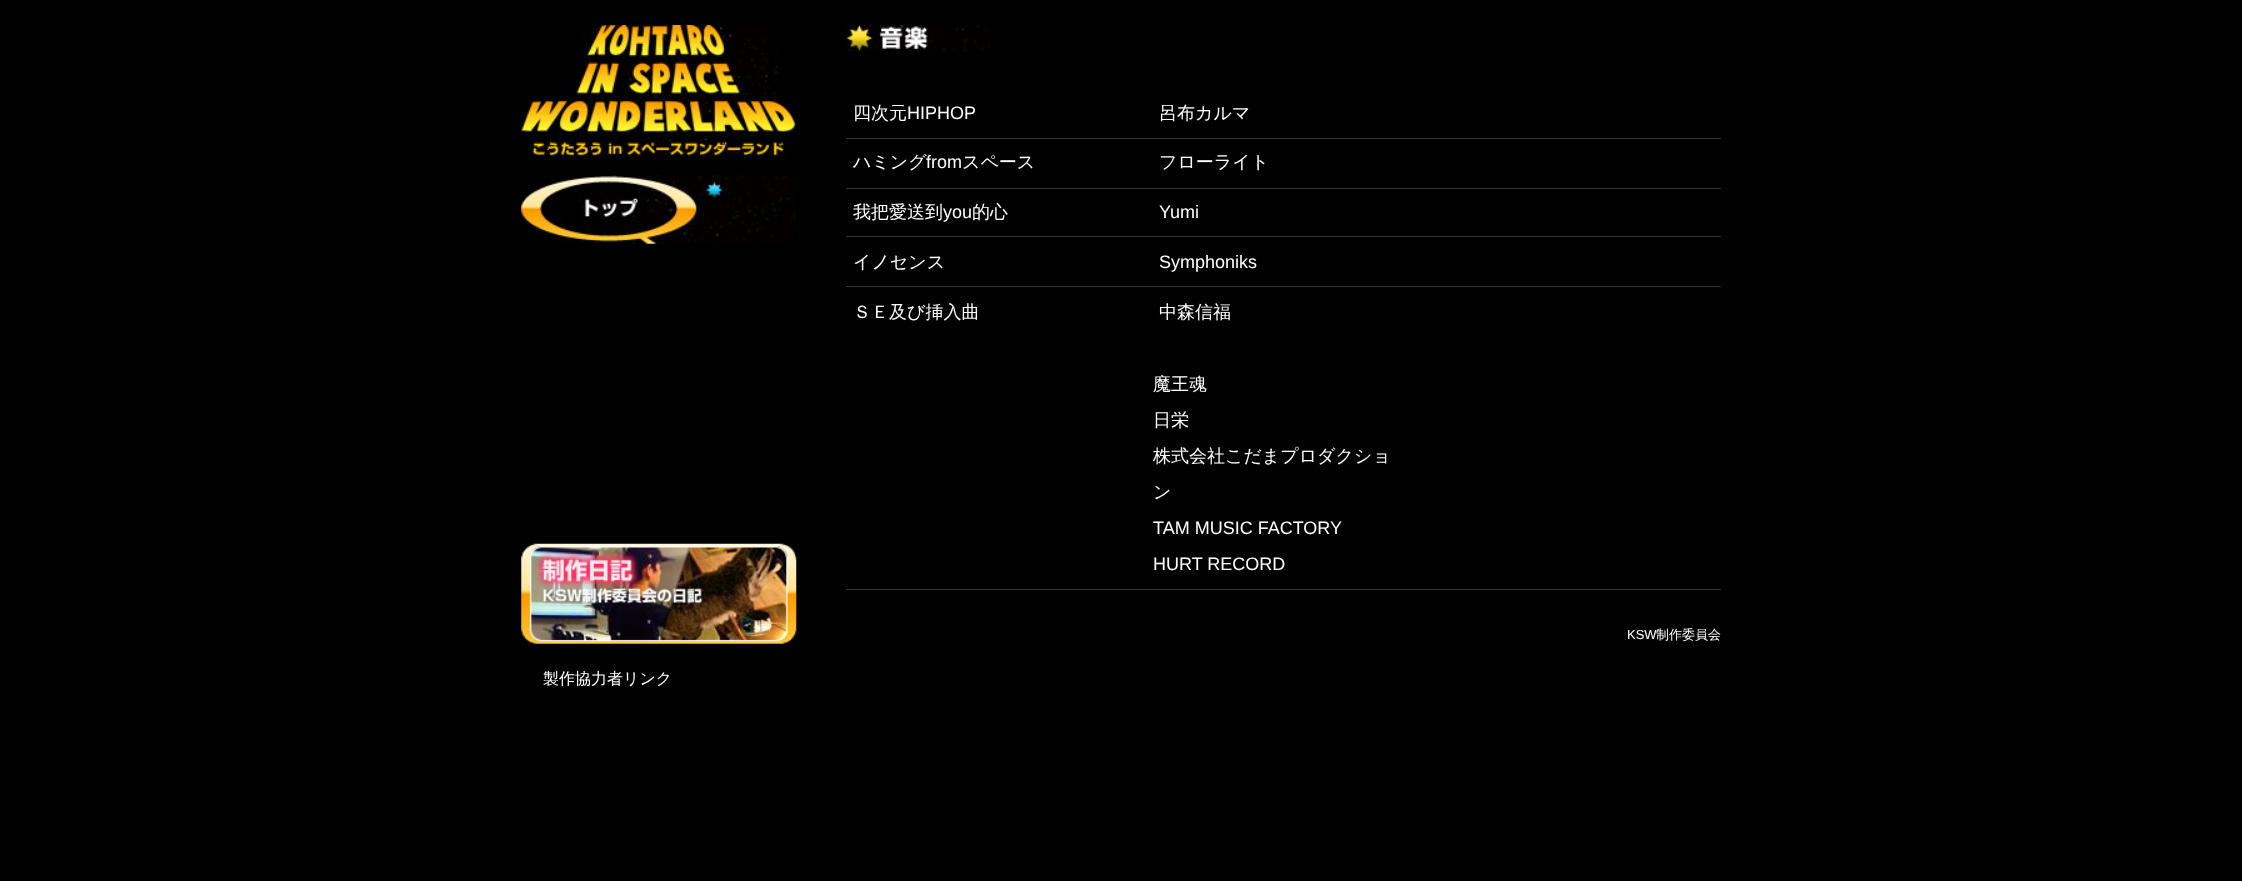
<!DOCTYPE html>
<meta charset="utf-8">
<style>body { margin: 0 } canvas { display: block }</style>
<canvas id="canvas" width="2242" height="881"></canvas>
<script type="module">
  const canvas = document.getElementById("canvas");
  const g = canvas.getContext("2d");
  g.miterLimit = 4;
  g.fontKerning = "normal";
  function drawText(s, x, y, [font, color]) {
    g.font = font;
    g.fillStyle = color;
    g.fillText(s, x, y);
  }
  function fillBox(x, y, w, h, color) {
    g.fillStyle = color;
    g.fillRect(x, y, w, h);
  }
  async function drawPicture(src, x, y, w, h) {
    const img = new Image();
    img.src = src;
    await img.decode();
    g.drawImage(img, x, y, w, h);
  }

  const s1 = ["500 18px WenQuanYi Zen Hei", "#FFFFFF"];
  const s2 = ["18px Liberation Sans", "#FFFFFF"];
  const s3 = ["13px Liberation Sans", "#FFFFFF"];
  const s4 = ["500 13px WenQuanYi Zen Hei", "#FFFFFF"];
  const s5 = ["500 16px WenQuanYi Zen Hei", "#FFFFFF"];

  fillBox(0, 0, 2242, 881, "#000000");
  await drawPicture("pic1.png", 846, 25, 145, 27);
  fillBox(846, 138, 875, 1, "#333333");
  drawText("四次元", 853, 119, s1);
  drawText("HIPHOP", 907, 119, s2);
  drawText("呂布カルマ", 1159, 119, s1);
  fillBox(846, 188, 875, 1, "#333333");
  drawText("ハミング", 853, 168, s1);
  drawText("from", 926, 168, s2);
  drawText("スペース", 962, 168, s1);
  drawText("フローライト", 1159, 168, s1);
  fillBox(846, 236, 875, 1, "#333333");
  drawText("我把愛送到", 853, 218, s1);
  drawText("you", 943, 218, s2);
  drawText("的心", 972, 218, s1);
  drawText("Yumi", 1159, 218, s2);
  fillBox(846, 286, 875, 1, "#333333");
  drawText("イノセンス", 853, 268, s1);
  drawText("Symphoniks", 1159, 268, s2);
  fillBox(846, 589, 875, 1, "#333333");
  drawText("ＳＥ及び挿入曲", 853, 318, s1);
  drawText("中森信福", 1159, 318, s1);
  drawText("魔王魂", 1153, 390, s1);
  drawText("日栄", 1153, 426, s1);
  drawText("株式会社こだまプロダクショ", 1153, 462, s1);
  drawText("ン", 1153, 498, s1);
  drawText("TAM MUSIC FACTORY", 1153, 534, s2);
  drawText("HURT RECORD", 1153, 570, s2);
  drawText("KSW", 1627, 639, s3);
  drawText("制作委員会", 1656, 639, s4);
  await drawPicture("pic2.png", 521, 25, 275, 131);
  await drawPicture("pic3.png", 521, 175, 275, 69);
  await drawPicture("pic4.png", 521, 543, 276, 101);
  drawText("製作協力者リンク", 543, 684, s5);
</script>
